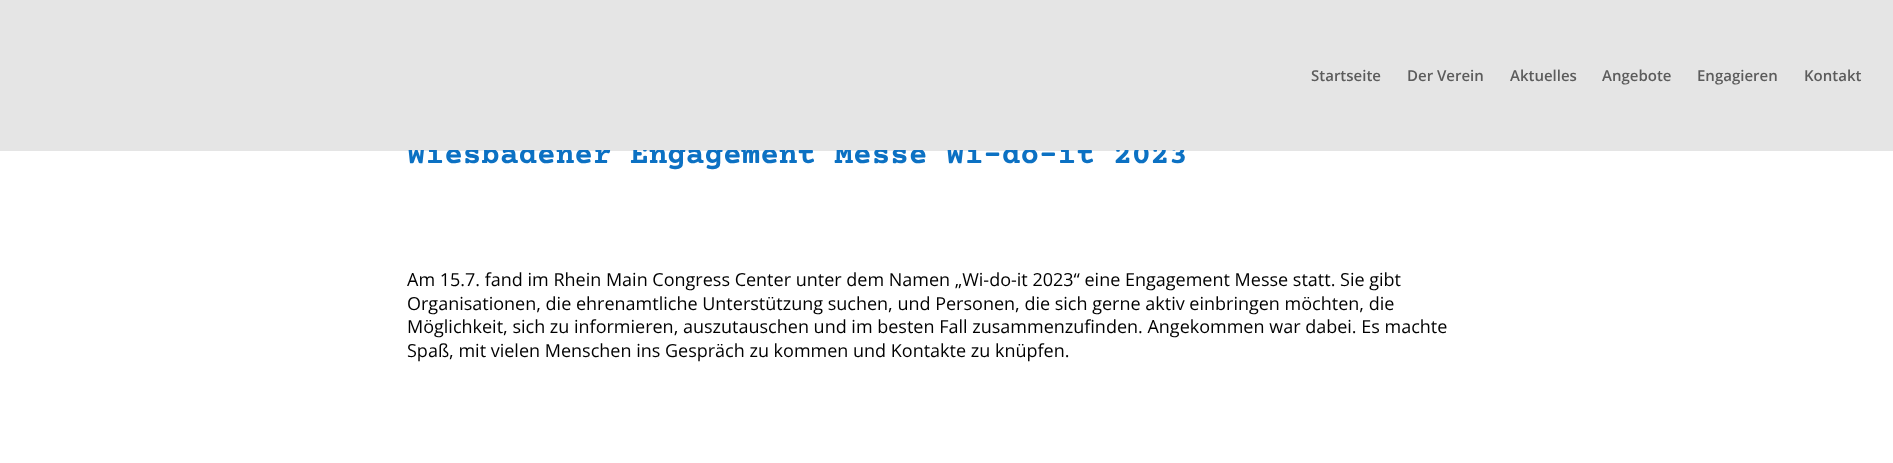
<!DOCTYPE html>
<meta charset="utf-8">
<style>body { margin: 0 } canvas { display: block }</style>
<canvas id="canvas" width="1893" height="463"></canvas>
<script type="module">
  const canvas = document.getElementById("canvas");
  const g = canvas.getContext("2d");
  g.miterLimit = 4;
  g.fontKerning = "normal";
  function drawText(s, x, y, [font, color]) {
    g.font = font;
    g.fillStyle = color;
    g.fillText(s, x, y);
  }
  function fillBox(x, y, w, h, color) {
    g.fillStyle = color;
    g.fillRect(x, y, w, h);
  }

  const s1 = ["bold 31px Courier Prime", "#0C71C3"];
  const s2 = ["600 15px Open Sans", "#5C5C5C"];
  const s3 = ["18px Open Sans", "#000000"];

  fillBox(0, 0, 1893, 463, "#FFFFFF");
  fillBox(0, 150, 1893, 1, "rgba(0, 0, 0, 0.1)");
  drawText("Wiesbadener Engagement Messe Wi-do-it 2023", 407, 163, s1);
  fillBox(0, 0, 1893, 150, "#E5E5E5");
  drawText("Startseite", 1311, 81, s2);
  drawText("Der Verein", 1407, 81, s2);
  drawText("Aktuelles", 1510, 81, s2);
  drawText("Angebote", 1602, 81, s2);
  drawText("Engagieren", 1697, 81, s2);
  drawText("Kontakt", 1804, 81, s2);
  drawText("Am 15.7. fand im Rhein Main Congress Center unter dem Namen „Wi-do-it 2023“ eine Engagement Messe statt. Sie gibt", 407, 286, s3);
  drawText("Organisationen, die ehrenamtliche Unterstützung suchen, und Personen, die sich gerne aktiv einbringen möchten, die", 407, 310, s3);
  drawText("Möglichkeit, sich zu informieren, auszutauschen und im besten Fall zusammenzufinden. Angekommen war dabei. Es machte", 407, 333, s3);
  drawText("Spaß, mit vielen Menschen ins Gespräch zu kommen und Kontakte zu knüpfen.", 407, 357, s3);
</script>
